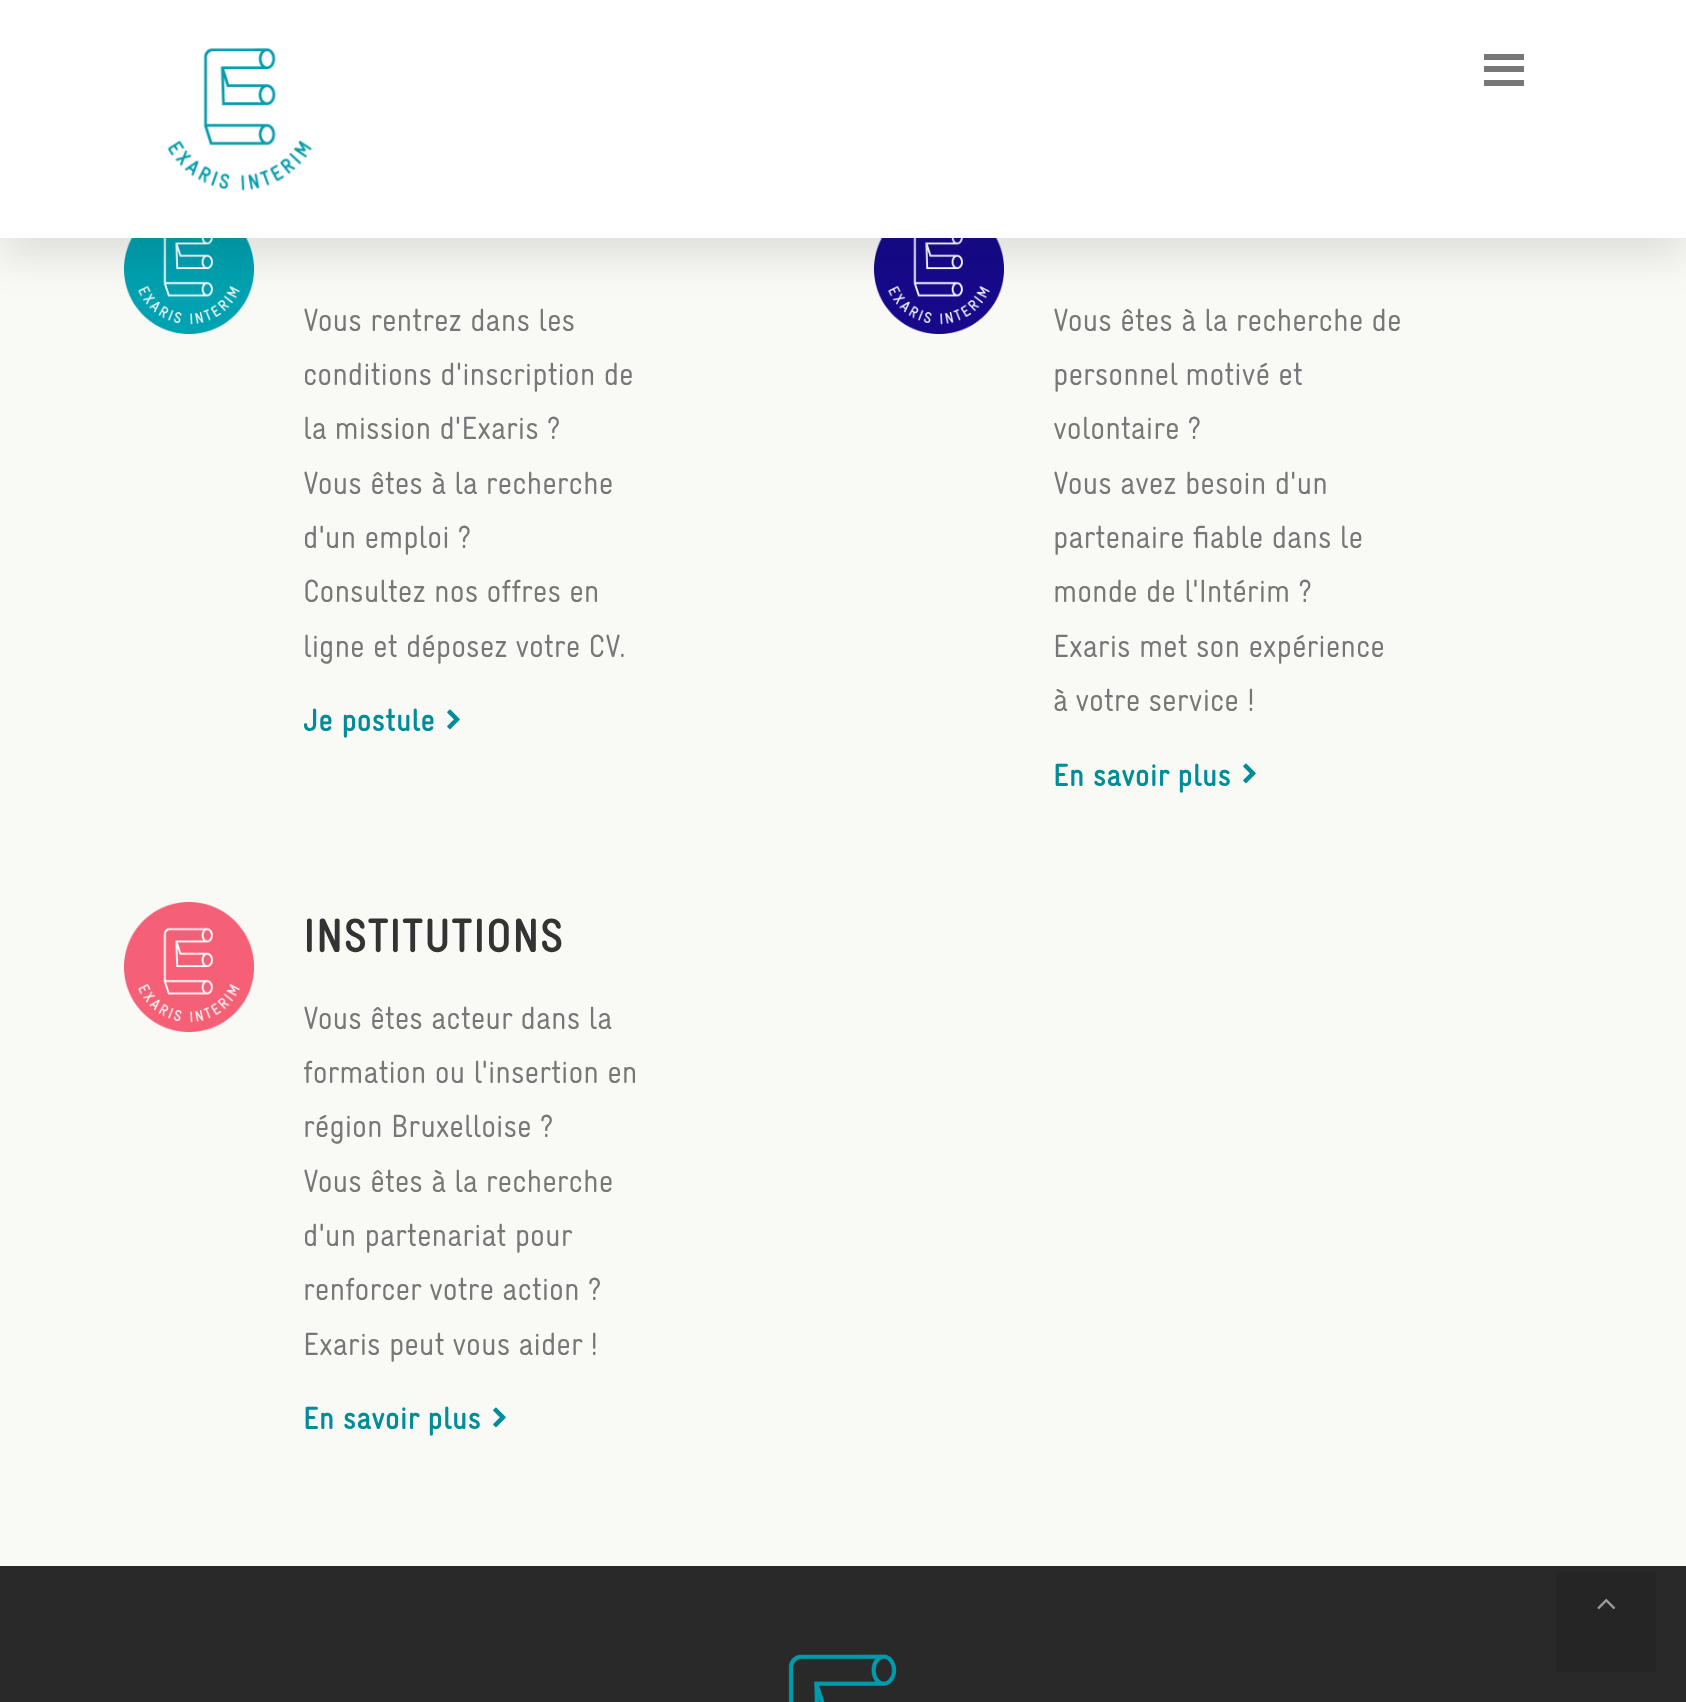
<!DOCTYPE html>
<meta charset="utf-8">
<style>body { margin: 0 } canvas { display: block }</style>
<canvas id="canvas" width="1686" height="1702"></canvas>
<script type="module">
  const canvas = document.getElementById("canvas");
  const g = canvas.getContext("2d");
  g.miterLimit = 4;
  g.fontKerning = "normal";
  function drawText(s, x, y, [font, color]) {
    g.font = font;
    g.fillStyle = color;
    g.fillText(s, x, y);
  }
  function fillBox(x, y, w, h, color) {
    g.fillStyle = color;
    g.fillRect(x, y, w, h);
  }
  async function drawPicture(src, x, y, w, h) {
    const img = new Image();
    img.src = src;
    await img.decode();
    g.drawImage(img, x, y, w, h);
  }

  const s1 = ["32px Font", "#777777"];
  const s2 = ["bold 32px Font", "#008C98"];
  const s3 = ["bold 48px Font", "#333333"];

  fillBox(0, 0, 1686, 1702, "#F9F9F6");
  await drawPicture("pic2.png", 124, 238, 130, 96);
  await drawPicture("pic4.png", 874, 238, 130, 96);
  g.fillStyle = "rgba(0, 0, 0, 0.1)";
  g.filter = "blur(20px)";
  g.beginPath();
  g.rect(0, 20, 1686, 238);
  g.fill();
  g.filter = "none";
  fillBox(0, 0, 1686, 238, "#FFFFFF");
  await drawPicture("pic1.png", 167, 48, 145, 143);
  fillBox(1484, 54, 40, 6, "#777777");
  fillBox(1484, 66, 40, 6, "#777777");
  fillBox(1484, 80, 40, 6, "#777777");
  drawText("Vous rentrez dans les", 303, 331, s1);
  drawText("conditions d'inscription de", 303, 385, s1);
  drawText("la mission d'Exaris ?", 303, 439, s1);
  drawText("Vous êtes à la recherche", 303, 494, s1);
  drawText("d'un emploi ?", 303, 548, s1);
  drawText("Consultez nos offres en", 303, 602, s1);
  drawText("ligne et déposez votre CV.", 303, 657, s1);
  drawText("Je postule", 303, 731, s2);
  await drawPicture("pic3.png", 447, 709, 13, 21);
  drawText("Vous êtes à la recherche de", 1053, 331, s1);
  drawText("personnel motivé et", 1053, 385, s1);
  drawText("volontaire ?", 1053, 439, s1);
  drawText("Vous avez besoin d'un", 1053, 494, s1);
  drawText("partenaire fiable dans le", 1053, 548, s1);
  drawText("monde de l'Intérim ?", 1053, 602, s1);
  drawText("Exaris met son expérience", 1053, 657, s1);
  drawText("à votre service !", 1053, 711, s1);
  drawText("En savoir plus", 1053, 786, s2);
  await drawPicture("pic3.png", 1243, 763, 13, 21);
  await drawPicture("pic5.png", 124, 902, 130, 130);
  drawText("INSTITUTIONS", 303, 952, s3);
  drawText("Vous êtes acteur dans la", 303, 1029, s1);
  drawText("formation ou l'insertion en", 303, 1083, s1);
  drawText("région Bruxelloise ?", 303, 1137, s1);
  drawText("Vous êtes à la recherche", 303, 1192, s1);
  drawText("d'un partenariat pour", 303, 1246, s1);
  drawText("renforcer votre action ?", 303, 1300, s1);
  drawText("Exaris peut vous aider !", 303, 1355, s1);
  drawText("En savoir plus", 303, 1429, s2);
  await drawPicture("pic3.png", 493, 1407, 13, 21);
  fillBox(0, 1566, 1686, 136, "#292929");
  await drawPicture("pic6.png", 788, 1654, 109, 48);
  fillBox(1556, 1572, 100, 100, "#252525");
  await drawPicture("pic7.png", 1597, 1598, 19, 12);
</script>
